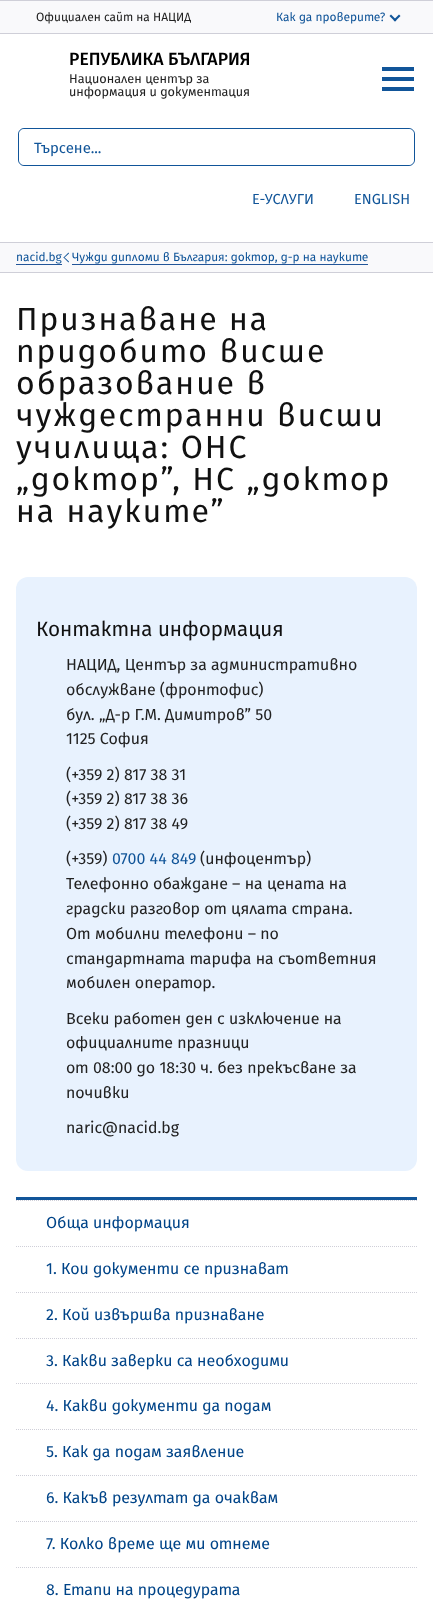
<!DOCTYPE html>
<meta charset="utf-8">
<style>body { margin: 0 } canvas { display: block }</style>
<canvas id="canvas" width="433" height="1610"></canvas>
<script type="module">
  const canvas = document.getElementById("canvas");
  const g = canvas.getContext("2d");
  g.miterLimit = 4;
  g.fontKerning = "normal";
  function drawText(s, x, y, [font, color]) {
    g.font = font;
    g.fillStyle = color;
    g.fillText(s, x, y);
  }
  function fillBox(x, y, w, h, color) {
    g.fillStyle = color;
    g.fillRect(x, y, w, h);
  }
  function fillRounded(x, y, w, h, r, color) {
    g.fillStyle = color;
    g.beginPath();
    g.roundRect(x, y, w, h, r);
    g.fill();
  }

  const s1 = ["12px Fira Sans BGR", "#222222"];
  const s2 = ["12px Fira Sans BGR", "#115599"];
  const s3 = ["500 17.6px Fira Sans BGR", "#000000"];
  const s4 = ["12.75px Fira Sans BGR", "#222222"];
  const s5 = ["15px Fira Sans BGR", "#115599"];
  const s6 = ["14.5px Fira Sans BGR", "#115599"];
  const s7 = ["32px Fira Sans BGR", "#111111"];
  const s8 = ["20.75px Fira Sans BGR", "#111111"];
  const s9 = ["16px Fira Sans BGR", "#222222"];
  const s10 = ["16px Fira Sans BGR", "#115599"];
  const s11 = ["16px Fira Sans BGR", "#004488"];

  fillBox(0, 0, 433, 1610, "#FFFFFF");
  fillBox(0, 1, 433, 32, "#F9F9FB");
  fillBox(0, 0, 433, 1, "#CFCFD8");
  fillBox(0, 33, 433, 1, "#CFCFD8");
  drawText("Официален сайт на НАЦИД", 36, 21, s1);
  drawText("Как да проверите?", 276, 21, s2);
  g.beginPath();
  g.moveTo(400.5, 16);
  g.lineTo(395, 21.5);
  g.lineTo(393.5, 20);
  g.lineTo(399, 14.5);
  g.closePath();
  g.fill();
  g.beginPath();
  g.moveTo(396.5, 20);
  g.lineTo(395, 21.5);
  g.lineTo(389.5, 16);
  g.lineTo(391, 14.5);
  g.closePath();
  g.fill();
  drawText("РЕПУБЛИКА БЪЛГАРИЯ", 69, 65, s3);
  drawText("Национален център за", 69, 83, s4);
  drawText("информация и документация", 69, 96, s4);
  fillBox(382, 77, 32, 4, "#115599");
  fillBox(382, 67, 32, 4, "#115599");
  fillBox(382, 87, 32, 4, "#115599");
  g.beginPath();
  g.roundRect(18.5, 128.5, 396, 37, 5.5);
  g.strokeStyle = "#115599";
  g.stroke();
  fillRounded(19, 129, 395, 36, 6, "#FFFFFF");
  drawText("Търсене...", 34, 153, s5);
  drawText("Е-УСЛУГИ", 252, 204, s6);
  drawText("ENGLISH", 354, 204, s6);
  fillBox(0, 243, 433, 29, "#F9F9FB");
  fillBox(0, 242, 433, 1, "#CFCFD8");
  fillBox(0, 272, 433, 1, "#CFCFD8");
  drawText("nacid.bg", 16, 261, s2);
  fillBox(16, 264, 46, 1, "#225599");
  g.fillStyle = "#115599";
  g.beginPath();
  g.moveTo(68.5, 262.5);
  g.lineTo(63.5, 257.5);
  g.lineTo(64, 257);
  g.lineTo(69, 261.5);
  g.closePath();
  g.fill();
  g.beginPath();
  g.moveTo(64, 258);
  g.lineTo(63.5, 257.5);
  g.lineTo(68.5, 252.5);
  g.lineTo(69, 253.5);
  g.closePath();
  g.fill();
  drawText("Чужди дипломи в България: доктор, д-р на науките", 72, 261, s2);
  fillBox(72, 264, 296, 1, "#225599");
  g.letterSpacing = "2px";
  drawText("Признаване на", 16, 330, s7);
  drawText("придобито висше", 16, 362, s7);
  drawText("образование в", 16, 394, s7);
  drawText("чуждестранни висши", 16, 426, s7);
  drawText("училища: ОНС", 16, 458, s7);
  drawText("„доктор”, НС „доктор", 16, 490, s7);
  drawText("на науките”", 16, 522, s7);
  fillRounded(16, 577, 401, 594, 12, "#E8F2FE");
  g.letterSpacing = "0px";
  drawText("Контактна информация", 36, 636, s8);
  drawText("НАЦИД, Център за административно", 66, 670, s9);
  drawText("обслужване (фронтофис)", 66, 695, s9);
  drawText("бул. „Д-р Г.М. Димитров” 50", 66, 720, s9);
  drawText("1125 София", 66, 744, s9);
  drawText("(+359 2) 817 38 31", 66, 780, s9);
  drawText("(+359 2) 817 38 36", 66, 804, s9);
  drawText("(+359 2) 817 38 49", 66, 829, s9);
  drawText("(+359)", 66, 864, s9);
  drawText("0700 44 849", 112, 864, s10);
  drawText("(инфоцентър)", 200, 864, s9);
  drawText("Телефонно обаждане – на цената на", 66, 889, s9);
  drawText("градски разговор от цялата страна.", 66, 914, s9);
  drawText("От мобилни телефони – по", 66, 939, s9);
  drawText("стандартната тарифа на съответния", 66, 964, s9);
  drawText("мобилен оператор.", 66, 988, s9);
  drawText("Всеки работен ден с изключение на", 66, 1024, s9);
  drawText("официалните празници", 66, 1048, s9);
  drawText("от 08:00 до 18:30 ч. без прекъсване за", 66, 1073, s9);
  drawText("почивки", 66, 1098, s9);
  drawText("naric@nacid.bg", 66, 1133, s9);
  fillBox(16, 1197, 401, 3, "#115599");
  g.beginPath();
  g.moveTo(16, 1200.5);
  g.lineTo(417, 1200.5);
  g.strokeStyle = "#CFCFD8";
  g.setLineDash([1, 1]);
  g.stroke();
  g.beginPath();
  g.moveTo(16, 1246.5);
  g.lineTo(417, 1246.5);
  g.stroke();
  drawText("Обща информация", 46, 1228, s11);
  g.beginPath();
  g.moveTo(16, 1292.5);
  g.lineTo(417, 1292.5);
  g.stroke();
  drawText("1. Кои документи се признават", 46, 1274, s11);
  g.beginPath();
  g.moveTo(16, 1338.5);
  g.lineTo(417, 1338.5);
  g.stroke();
  drawText("2. Кой извършва признаване", 46, 1320, s11);
  g.beginPath();
  g.moveTo(16, 1383.5);
  g.lineTo(417, 1383.5);
  g.stroke();
  drawText("3. Какви заверки са необходими", 46, 1366, s11);
  g.beginPath();
  g.moveTo(16, 1429.5);
  g.lineTo(417, 1429.5);
  g.stroke();
  drawText("4. Какви документи да подам", 46, 1411, s11);
  g.beginPath();
  g.moveTo(16, 1475.5);
  g.lineTo(417, 1475.5);
  g.stroke();
  drawText("5. Как да подам заявление", 46, 1457, s11);
  g.beginPath();
  g.moveTo(16, 1521.5);
  g.lineTo(417, 1521.5);
  g.stroke();
  drawText("6. Какъв резултат да очаквам", 46, 1503, s11);
  g.beginPath();
  g.moveTo(16, 1567.5);
  g.lineTo(417, 1567.5);
  g.stroke();
  drawText("7. Колко време ще ми отнеме", 46, 1549, s11);
  drawText("8. Етапи на процедурата", 46, 1595, s11);
  g.beginPath();
  g.arc(398, 1525, 24.5, 0, Math.PI * 2);
  g.strokeStyle = "#FFFFFF";
  g.setLineDash([]);
  g.stroke();
</script>
